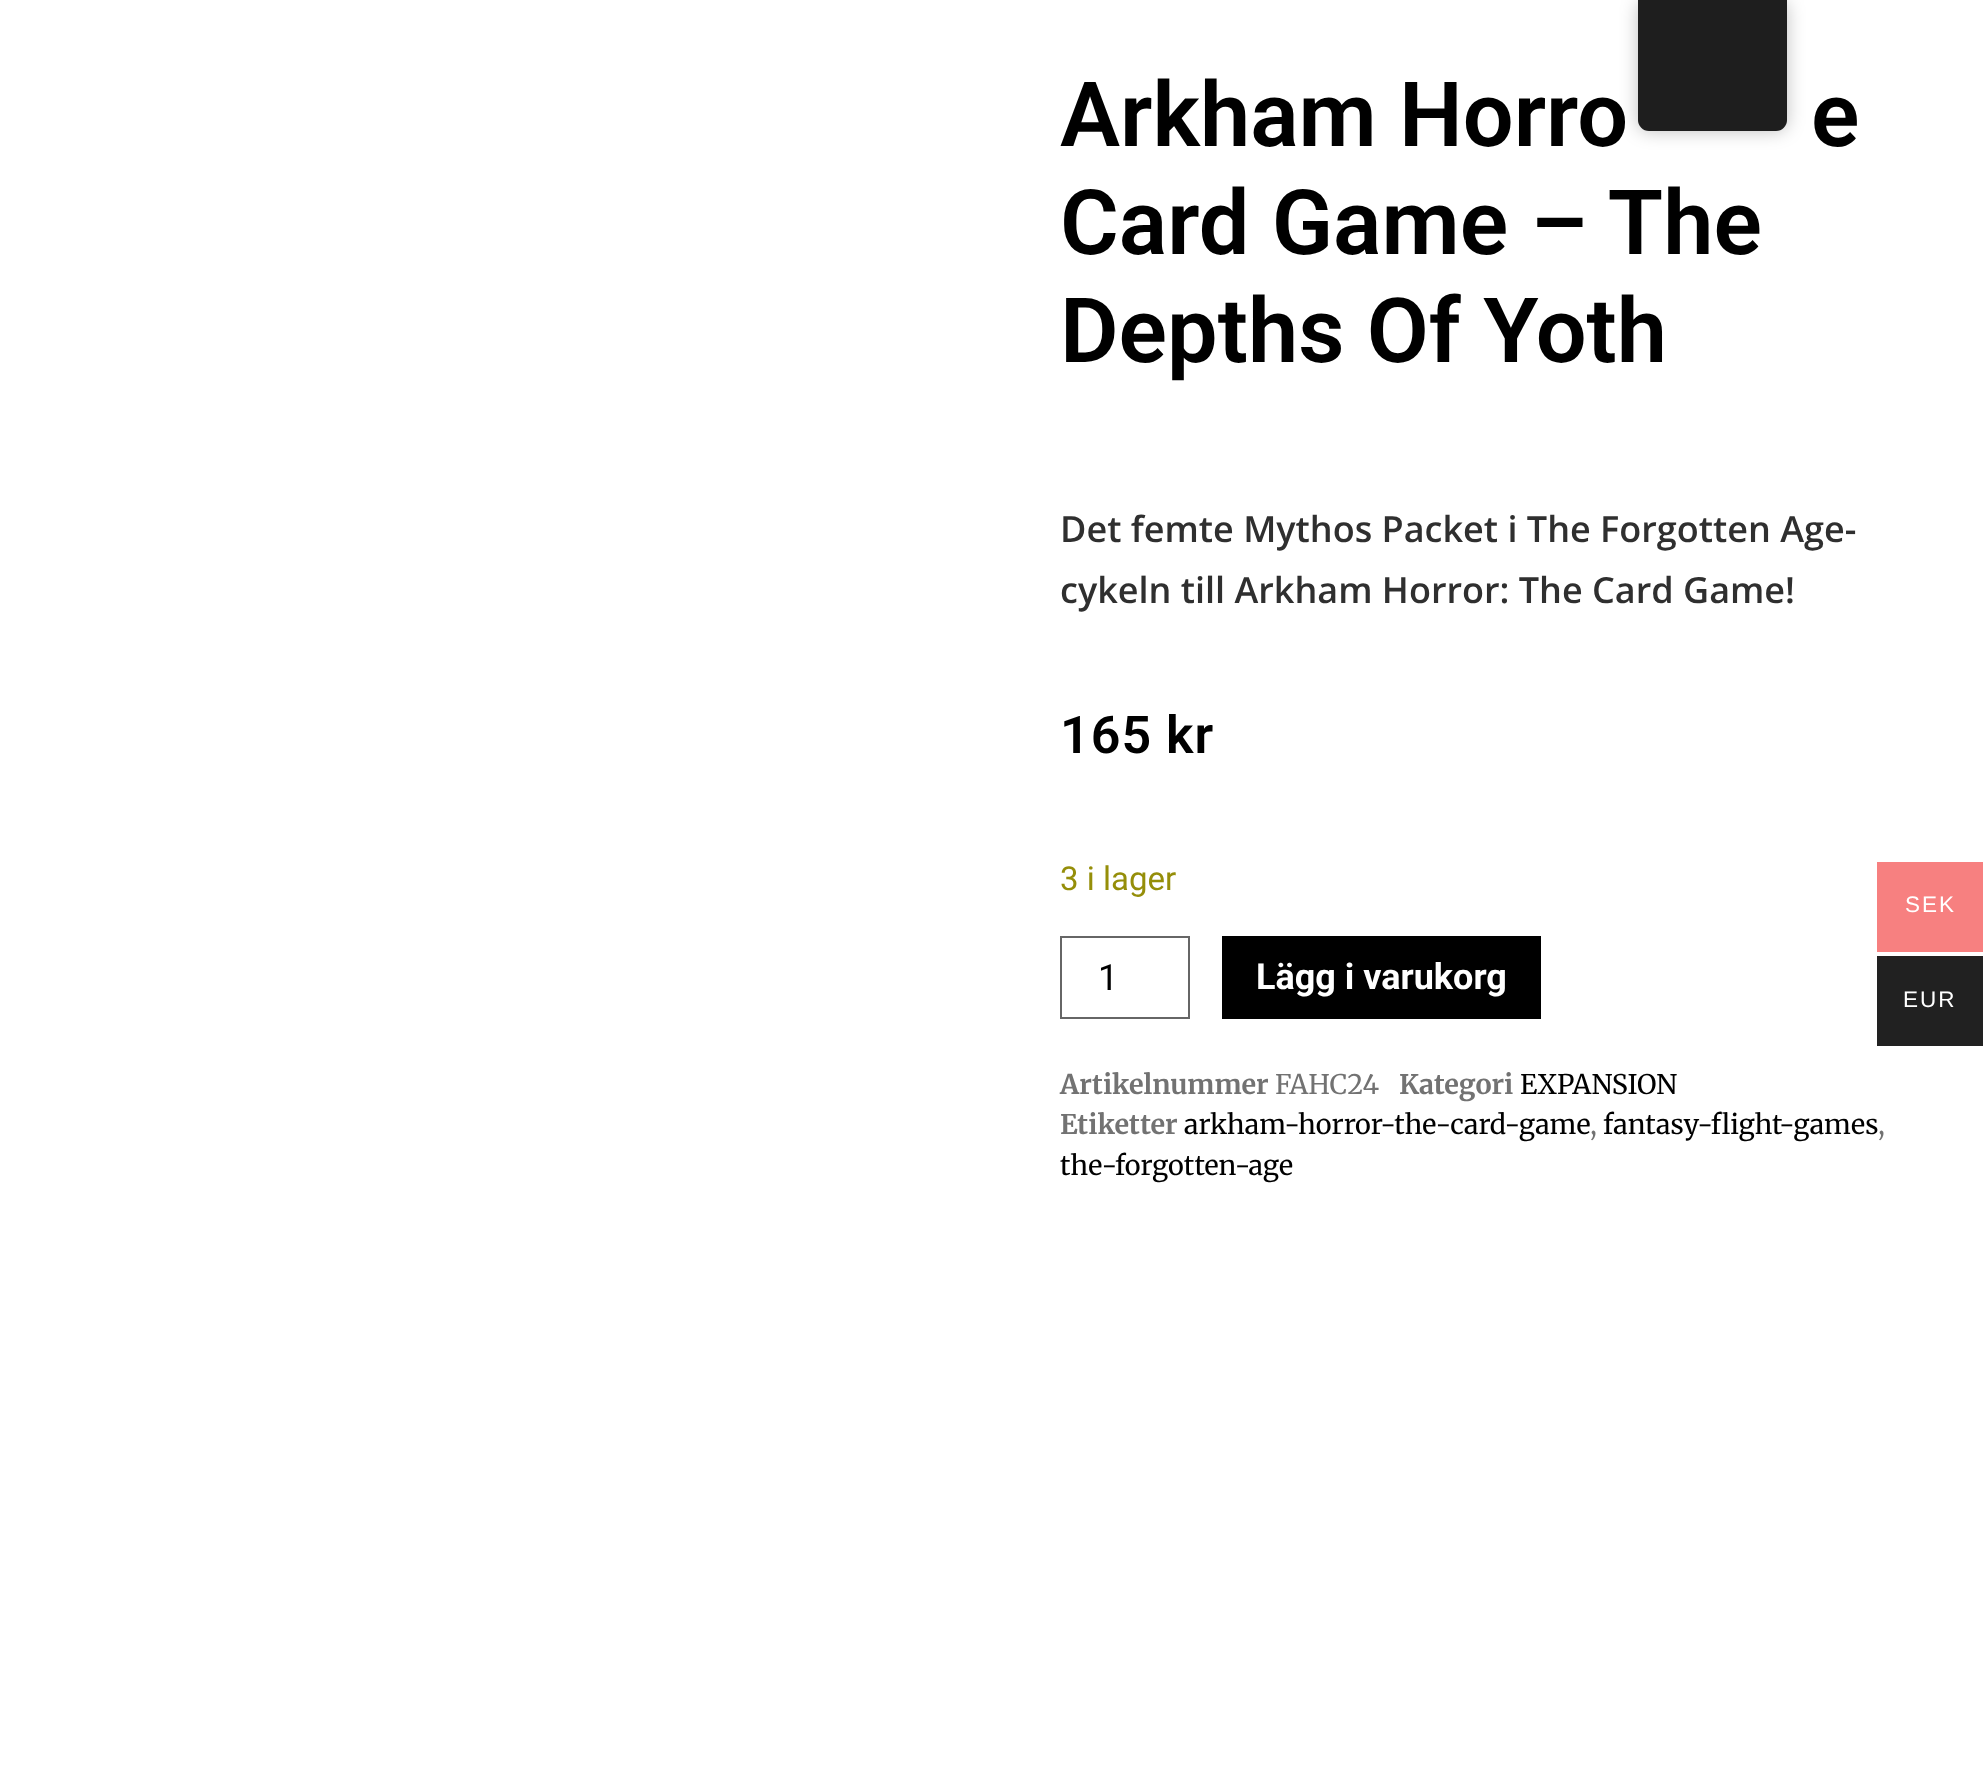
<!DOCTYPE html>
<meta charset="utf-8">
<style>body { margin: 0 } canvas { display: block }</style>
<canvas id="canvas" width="1983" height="1788"></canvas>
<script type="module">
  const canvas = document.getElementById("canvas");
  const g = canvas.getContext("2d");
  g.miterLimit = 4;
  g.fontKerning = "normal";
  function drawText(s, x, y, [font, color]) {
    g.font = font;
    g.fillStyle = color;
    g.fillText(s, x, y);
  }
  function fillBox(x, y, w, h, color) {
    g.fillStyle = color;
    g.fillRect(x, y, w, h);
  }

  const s1 = ["600 90px Roboto", "#000000"];
  const s2 = ["600 36px Open Sans", "#2F2F2F"];
  const s3 = ["600 52px Roboto", "#000000"];
  const s4 = ["33px Roboto", "#958E09"];
  const s5 = ["36px Roboto", "#000000"];
  const s6 = ["bold 36px Roboto", "#FFFFFF"];
  const s7 = ["bold 27px Merriweather", "#727272"];
  const s8 = ["27px Merriweather", "#727272"];
  const s9 = ["27px Merriweather", "#000000"];
  const s10 = ["22.5px Liberation Sans", "#FFFFFF"];

  fillBox(0, 0, 1983, 1788, "#FFFFFF");
  g.fillStyle = "rgba(0, 0, 0, 0.25)";
  g.filter = "blur(9px)";
  g.beginPath();
  g.roundRect(1638, 0, 149, 131, 11);
  g.fill();
  g.filter = "none";
  g.fillStyle = "#1E1E1E";
  g.beginPath();
  g.roundRect(1638, 0, 149, 131, [0, 0, 11, 11]);
  g.fill();
  drawText("Arkham Horro", 1060, 146, s1);
  drawText("e", 1811, 146, s1);
  drawText("Card Game – The", 1060, 254, s1);
  drawText("Depths Of Yoth", 1060, 362, s1);
  drawText("Det femte Mythos Packet i The Forgotten Age-", 1060, 542, s2);
  drawText("cykeln till Arkham Horror: The Card Game!", 1060, 603, s2);
  g.letterSpacing = "1px";
  drawText("165 kr", 1060, 753, s3);
  g.letterSpacing = "0px";
  drawText("3 i lager", 1060, 890, s4);
  g.strokeStyle = "#666666";
  g.lineWidth = 2;
  g.strokeRect(1061, 937, 128, 81);
  drawText("1", 1098, 990, s5);
  fillBox(1222, 936, 319, 83, "#000000");
  drawText("Lägg i varukorg", 1256, 989, s6);
  drawText("Artikelnummer", 1060, 1094, s7);
  drawText("FAHC24", 1275, 1094, s8);
  drawText("Kategori", 1399, 1094, s7);
  drawText("EXPANSION", 1520, 1094, s9);
  drawText("Etiketter", 1060, 1134, s7);
  drawText("arkham-horror-the-card-game", 1184, 1134, s9);
  drawText(",", 1590, 1134, s8);
  drawText("fantasy-flight-games", 1603, 1134, s9);
  drawText(",", 1878, 1134, s8);
  drawText("the-forgotten-age", 1060, 1175, s9);
  fillBox(1877, 862, 106, 90, "#F78080");
  g.letterSpacing = "2px";
  drawText("SEK", 1905, 912, s10);
  fillBox(1877, 956, 106, 90, "#212121");
  drawText("EUR", 1903, 1007, s10);
</script>
